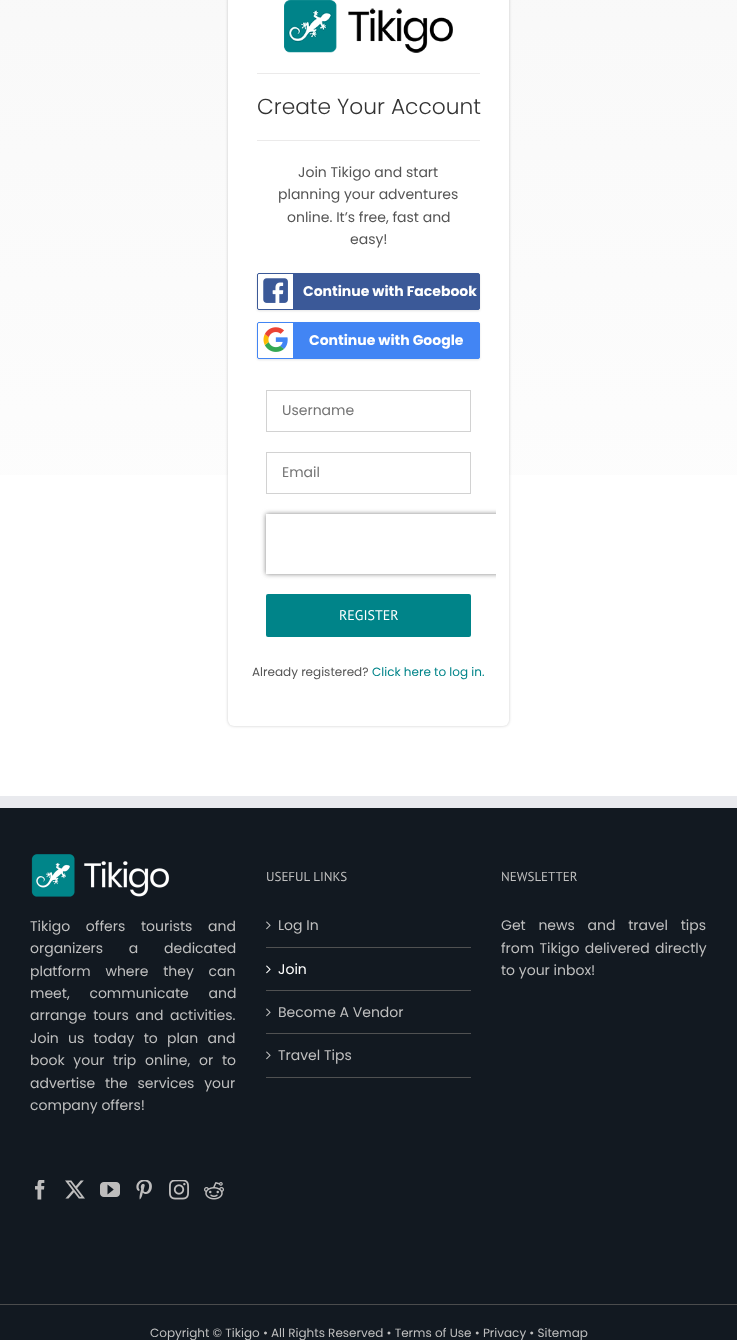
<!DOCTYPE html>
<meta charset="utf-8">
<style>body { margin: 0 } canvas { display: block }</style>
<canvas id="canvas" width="737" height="1340"></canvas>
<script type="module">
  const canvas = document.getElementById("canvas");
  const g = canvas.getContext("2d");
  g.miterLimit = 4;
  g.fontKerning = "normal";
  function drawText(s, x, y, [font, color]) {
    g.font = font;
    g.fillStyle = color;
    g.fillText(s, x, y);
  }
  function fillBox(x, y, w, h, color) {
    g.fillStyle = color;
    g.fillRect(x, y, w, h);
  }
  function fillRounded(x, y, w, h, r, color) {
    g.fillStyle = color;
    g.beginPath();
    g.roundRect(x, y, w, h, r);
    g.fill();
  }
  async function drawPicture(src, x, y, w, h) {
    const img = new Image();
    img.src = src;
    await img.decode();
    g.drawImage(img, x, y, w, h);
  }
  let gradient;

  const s1 = ["300 21.75px Poppins", "#333333"];
  const s2 = ["14px Poppins", "#555555"];
  const s3 = ["bold 14px Poppins", "#FFFFFF"];
  const s4 = ["14px Poppins", "#747474"];
  const s5 = ["14px PT Sans", "#FFFFFF"];
  const s6 = ["12px Poppins", "#555555"];
  const s7 = ["12px Poppins", "#008489"];
  const s8 = ["14px Poppins", "#BFBFBF"];
  const s9 = ["13px PT Sans", "#BFBFBF"];
  const s10 = ["14px Poppins", "#FFFFFF"];
  const s11 = ["12px Poppins", "#BFBFBF"];

  fillBox(0, 0, 737, 1340, "#FFFFFF");
  gradient = g.createLinearGradient(368, -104, 369, 796);
  gradient.addColorStop(0, "#F8F8F8");
  gradient.addColorStop(1, "#FFFFFF");
  g.fillStyle = gradient;
  g.fillRect(0, 0, 737, 475);
  g.fillStyle = "rgba(0, 0, 0, 0.2)";
  g.filter = "blur(1.5px)";
  g.beginPath();
  g.roundRect(228, -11, 281, 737, 6);
  g.fill();
  g.filter = "none";
  fillRounded(228, -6, 281, 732, 6, "#FFFFFF");
  await drawPicture("pic1.png", 284, 0, 169, 53);
  fillBox(257, 73, 223, 1, "#EBEAEA");
  drawText("Create Your Account", 257, 114, s1);
  fillBox(257, 140, 223, 1, "#EBEAEA");
  drawText("Join Tikigo and start", 298, 177, s2);
  drawText("planning your adventures", 278, 199, s2);
  drawText("online. It’s free, fast and", 287, 222, s2);
  drawText("easy!", 350, 244, s2);
  g.fillStyle = "rgba(0, 0, 0, 0.1)";
  g.filter = "blur(1px)";
  g.beginPath();
  g.roundRect(257, 274, 223, 37, 2);
  g.fill();
  g.filter = "none";
  g.fillStyle = "#3B5998";
  g.beginPath();
  g.roundRect(257.5, 273.5, 222, 36, 1.5);
  g.fill();
  g.strokeStyle = "#3B5998";
  g.stroke();
  g.fillStyle = "#FFFFFF";
  g.beginPath();
  g.roundRect(258, 274, 35, 35, [1, 0, 0, 1]);
  g.fill();
  await drawPicture("pic2.png", 263, 278, 25, 25);
  drawText("Continue with Facebook", 303, 296, s3);
  g.fillStyle = "rgba(0, 0, 0, 0.1)";
  g.filter = "blur(1px)";
  g.beginPath();
  g.roundRect(257, 323, 223, 37, 2);
  g.fill();
  g.filter = "none";
  g.fillStyle = "#4285F4";
  g.beginPath();
  g.roundRect(257.5, 322.5, 222, 36, 1.5);
  g.fill();
  g.strokeStyle = "#4285F4";
  g.stroke();
  g.fillStyle = "#FFFFFF";
  g.beginPath();
  g.roundRect(258, 323, 35, 35, [1, 0, 0, 1]);
  g.fill();
  await drawPicture("pic3.png", 263, 327, 25, 25);
  drawText("Continue with Google", 309, 345, s3);
  g.strokeStyle = "#D2D2D2";
  g.strokeRect(266.5, 390.5, 204, 41);
  drawText("Username", 282, 415, s4);
  g.strokeRect(266.5, 452.5, 204, 41);
  drawText("Email", 282, 477, s4);
  g.save();
  g.beginPath();
  g.roundRect(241, 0, 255, 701, 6);
  g.clip();
  g.beginPath();
  g.moveTo(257, 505);
  g.lineTo(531, 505);
  g.lineTo(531, 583);
  g.lineTo(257, 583);
  g.closePath();
  g.moveTo(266, 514);
  g.lineTo(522, 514);
  g.lineTo(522, 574);
  g.lineTo(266, 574);
  g.closePath();
  g.clip("evenodd");
  g.fillStyle = "#808080";
  g.filter = "blur(2.5px)";
  g.beginPath();
  g.rect(266, 514, 256, 60);
  g.fill();
  g.filter = "none";
  g.restore();
  fillRounded(266, 594, 205, 43, 2, "#008489");
  drawText("REGISTER", 339, 620, s5);
  drawText("Already registered?", 252, 676, s6);
  drawText("Click here to log in.", 372, 676, s7);
  fillBox(0, 808, 737, 496, "#121921");
  fillBox(0, 796, 737, 12, "#E9EAEE");
  await drawPicture("pic4.png", 31, 854, 139, 43);
  g.wordSpacing = "12px";
  drawText("Tikigo offers tourists and", 30, 931, s8);
  g.wordSpacing = "22px";
  drawText("organizers a dedicated", 30, 953, s8);
  g.wordSpacing = "11px";
  drawText("platform where they can", 30, 976, s8);
  g.wordSpacing = "16px";
  drawText("meet, communicate and", 30, 998, s8);
  g.wordSpacing = "3px";
  drawText("arrange tours and activities.", 30, 1020, s8);
  g.wordSpacing = "5.5px";
  drawText("Join us today to plan and", 30, 1043, s8);
  g.wordSpacing = "5px";
  drawText("book your trip online, or to", 30, 1065, s8);
  g.wordSpacing = "6px";
  drawText("advertise the services your", 30, 1088, s8);
  g.wordSpacing = "0px";
  drawText("company offers!", 30, 1110, s8);
  await drawPicture("pic5.png", 35, 1180, 10, 20);
  await drawPicture("pic6.png", 65, 1180, 20, 19);
  await drawPicture("pic7.png", 100, 1182, 20, 15);
  await drawPicture("pic8.png", 136, 1180, 16, 20);
  await drawPicture("pic9.png", 169, 1180, 20, 20);
  await drawPicture("pic10.png", 204, 1182, 20, 18);
  drawText("USEFUL LINKS", 266, 881, s9);
  fillBox(266, 947, 205, 1, "#505152");
  await drawPicture("pic11.png", 266, 921, 5, 9);
  drawText("Log In", 278, 930, s8);
  fillBox(266, 990, 205, 1, "#505152");
  await drawPicture("pic12.png", 266, 965, 5, 9);
  drawText("Join", 278, 974, s10);
  fillBox(266, 1033, 205, 1, "#505152");
  await drawPicture("pic11.png", 266, 1008, 5, 9);
  drawText("Become A Vendor", 278, 1017, s8);
  fillBox(266, 1077, 205, 1, "#505152");
  await drawPicture("pic11.png", 266, 1051, 5, 9);
  drawText("Travel Tips", 278, 1060, s8);
  drawText("NEWSLETTER", 501, 881, s9);
  g.wordSpacing = "9px";
  drawText("Get news and travel tips", 501, 930, s8);
  g.wordSpacing = "1.5px";
  drawText("from Tikigo delivered directly", 501, 953, s8);
  g.wordSpacing = "0px";
  drawText("to your inbox!", 501, 975, s8);
  fillBox(0, 1305, 737, 35, "#121921");
  fillBox(0, 1304, 737, 1, "#4B4C4D");
  drawText("Copyright © Tikigo • All Rights Reserved • Terms of Use • Privacy • Sitemap", 150, 1337, s11);
</script>
